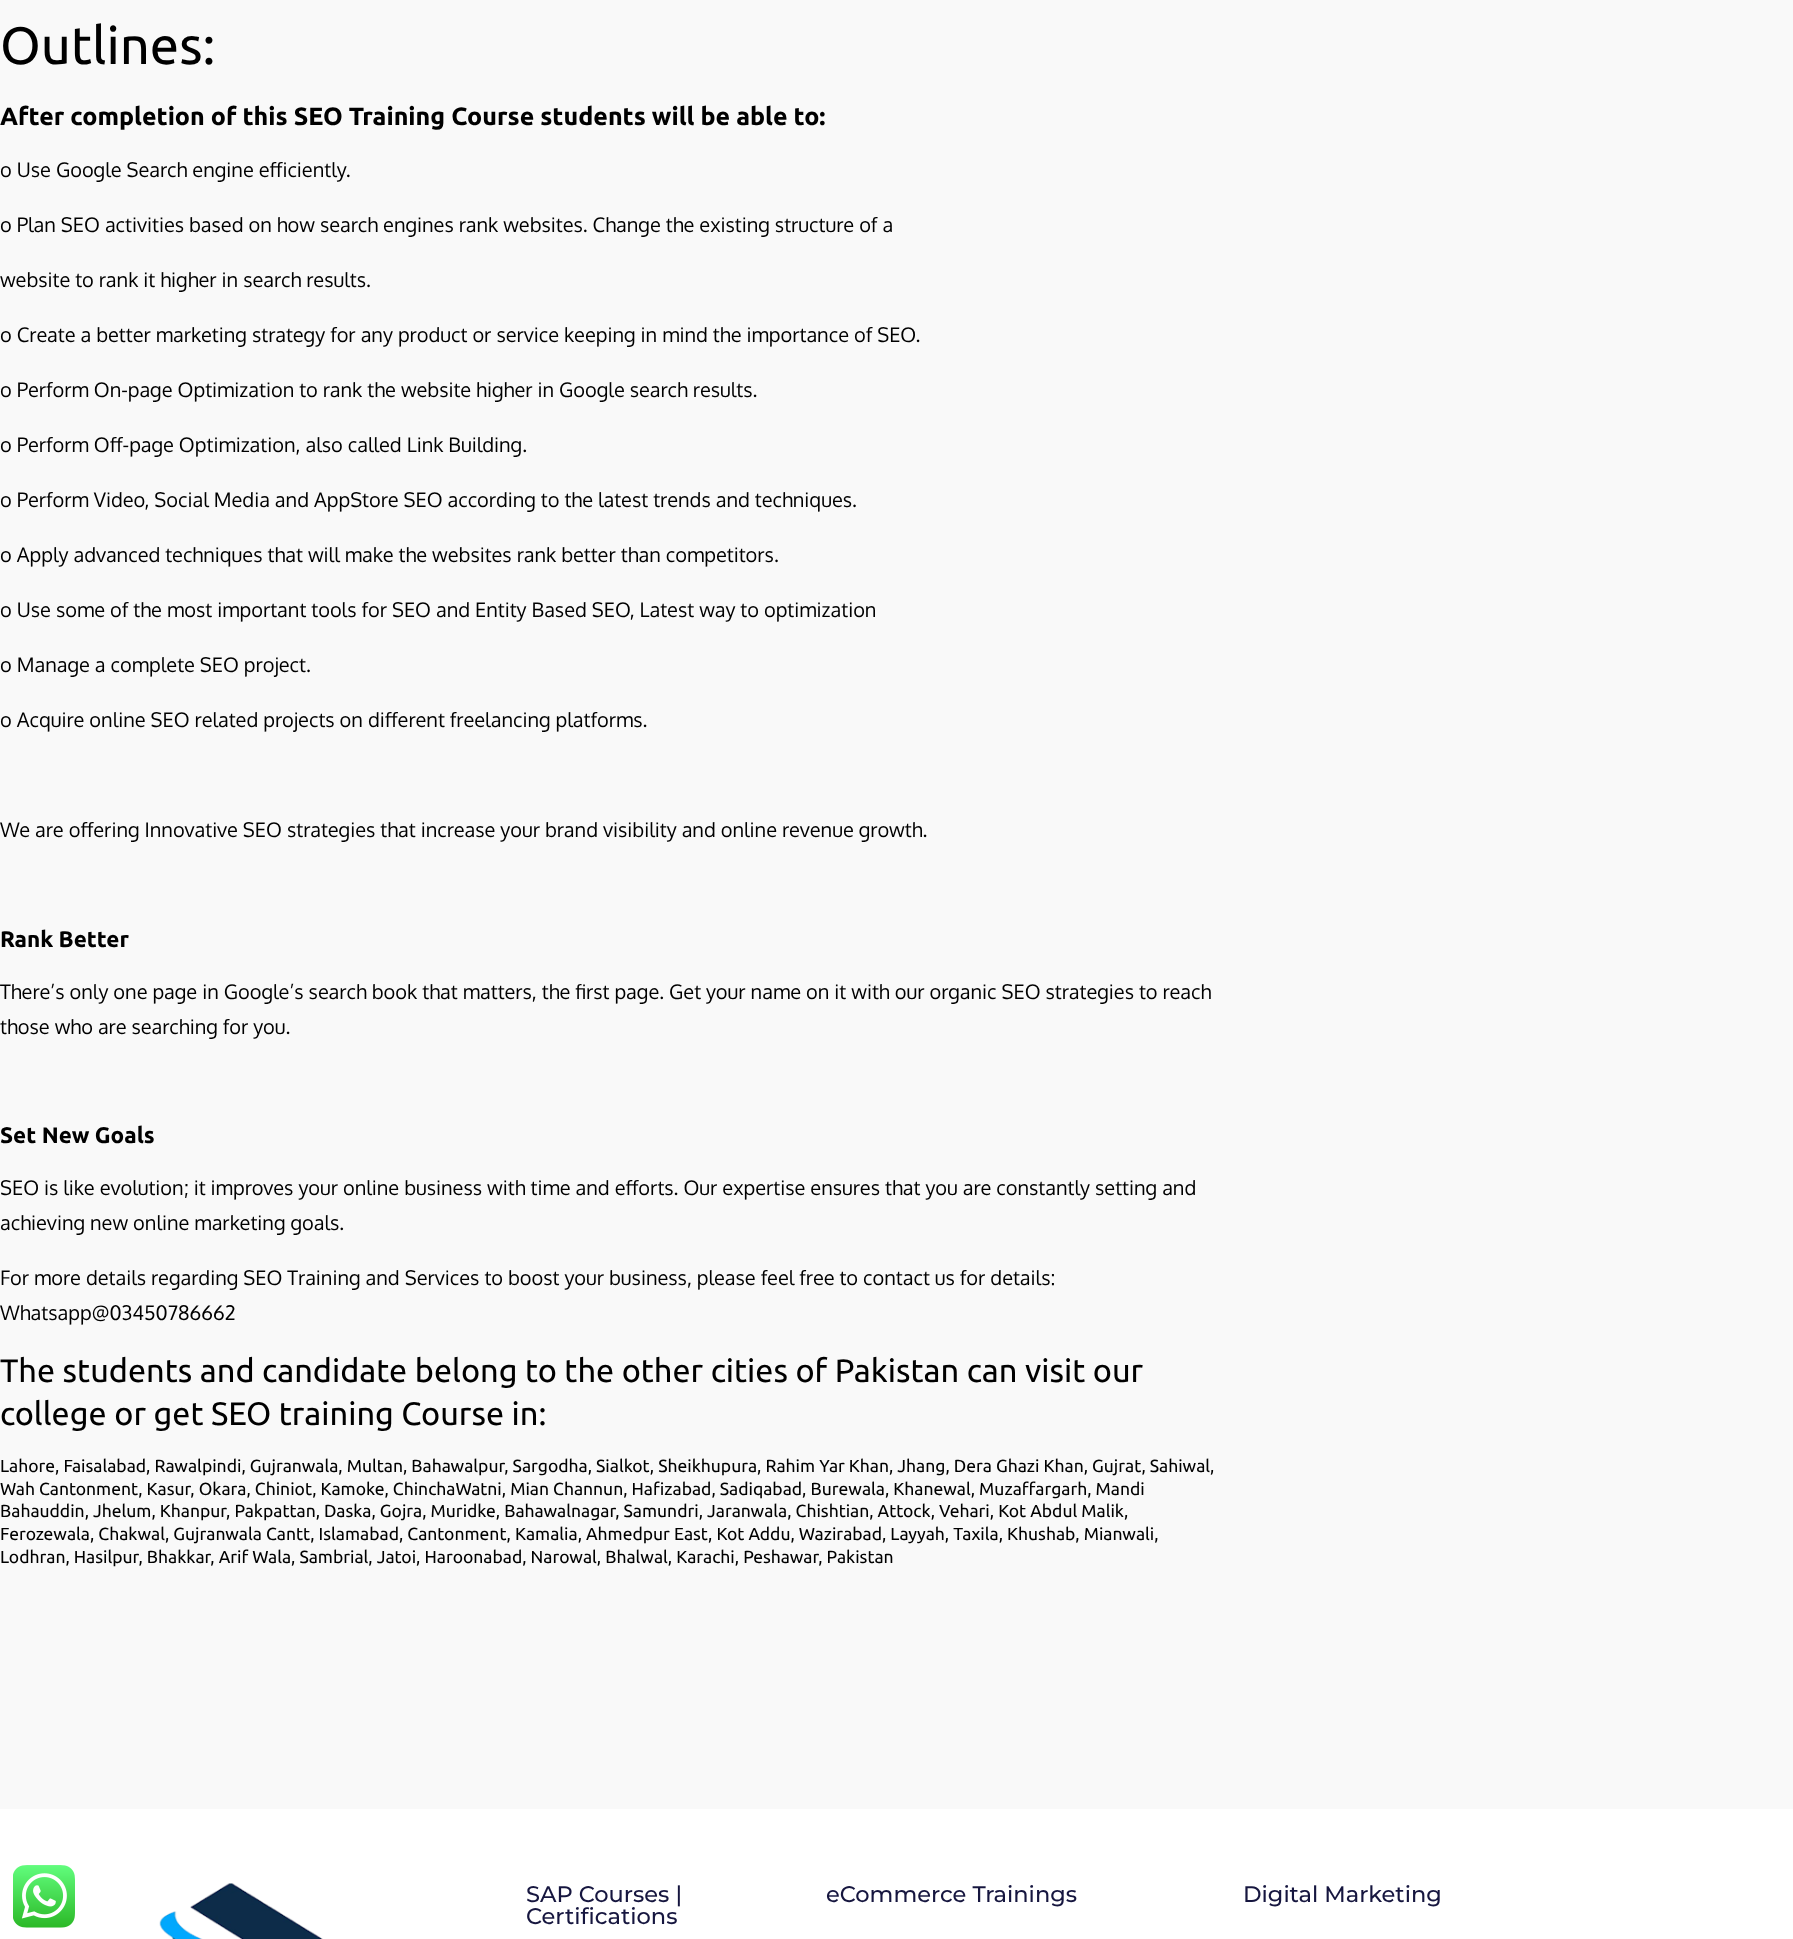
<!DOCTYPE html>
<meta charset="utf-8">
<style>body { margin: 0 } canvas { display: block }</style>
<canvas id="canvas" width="1793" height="1939"></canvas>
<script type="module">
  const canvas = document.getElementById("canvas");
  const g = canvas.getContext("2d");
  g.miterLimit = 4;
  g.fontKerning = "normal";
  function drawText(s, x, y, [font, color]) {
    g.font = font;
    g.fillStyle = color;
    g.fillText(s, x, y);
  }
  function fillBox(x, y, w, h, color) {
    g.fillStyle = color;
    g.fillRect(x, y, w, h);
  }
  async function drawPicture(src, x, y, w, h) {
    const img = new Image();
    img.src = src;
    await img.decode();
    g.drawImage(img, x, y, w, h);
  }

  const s1 = ["52.5px Ubuntu", "#000000"];
  const s2 = ["bold 25px Ubuntu", "#000000"];
  const s3 = ["20px Oxygen", "#000000"];
  const s4 = ["bold 22.5px Ubuntu", "#000000"];
  const s5 = ["32.5px Ubuntu", "#000000"];
  const s6 = ["17.5px Ubuntu", "#000000"];
  const s7 = ["500 22.5px Montserrat", "#16163F"];

  fillBox(0, 0, 1793, 1939, "#F9F9F9");
  drawText("Outlines:", 0, 64, s1);
  drawText("After completion of this SEO Training Course students will be able to:", 0, 125, s2);
  drawText("o Use Google Search engine efficiently.", 0, 177, s3);
  drawText("o Plan SEO activities based on how search engines rank websites. Change the existing structure of a", 0, 232, s3);
  drawText("website to rank it higher in search results.", 0, 287, s3);
  drawText("o Create a better marketing strategy for any product or service keeping in mind the importance of SEO.", 0, 342, s3);
  drawText("o Perform On-page Optimization to rank the website higher in Google search results.", 0, 397, s3);
  drawText("o Perform Off-page Optimization, also called Link Building.", 0, 452, s3);
  drawText("o Perform Video, Social Media and AppStore SEO according to the latest trends and techniques.", 0, 507, s3);
  drawText("o Apply advanced techniques that will make the websites rank better than competitors.", 0, 562, s3);
  drawText("o Use some of the most important tools for SEO and Entity Based SEO, Latest way to optimization", 0, 617, s3);
  drawText("o Manage a complete SEO project.", 0, 672, s3);
  drawText("o Acquire online SEO related projects on different freelancing platforms.", 0, 727, s3);
  drawText("We are offering Innovative SEO strategies that increase your brand visibility and online revenue growth.", 0, 837, s3);
  drawText("Rank Better", 0, 947, s4);
  drawText("There’s only one page in Google’s search book that matters, the first page. Get your name on it with our organic SEO strategies to reach", 0, 999, s3);
  drawText("those who are searching for you.", 0, 1034, s3);
  drawText("Set New Goals", 0, 1143, s4);
  drawText("SEO is like evolution; it improves your online business with time and efforts. Our expertise ensures that you are constantly setting and", 0, 1195, s3);
  drawText("achieving new online marketing goals.", 0, 1230, s3);
  drawText("For more details regarding SEO Training and Services to boost your business, please feel free to contact us for details:", 0, 1285, s3);
  drawText("Whatsapp@03450786662", 0, 1320, s3);
  drawText("The students and candidate belong to the other cities of Pakistan can visit our", 0, 1382, s5);
  drawText("college or get SEO training Course in:", 0, 1425, s5);
  drawText("Lahore, Faisalabad, Rawalpindi, Gujranwala, Multan, Bahawalpur, Sargodha, Sialkot, Sheikhupura, Rahim Yar Khan, Jhang, Dera Ghazi Khan, Gujrat, Sahiwal,", 0, 1472, s6);
  drawText("Wah Cantonment, Kasur, Okara, Chiniot, Kamoke, ChinchaWatni, Mian Channun, Hafizabad, Sadiqabad, Burewala, Khanewal, Muzaffargarh, Mandi", 0, 1495, s6);
  drawText("Bahauddin, Jhelum, Khanpur, Pakpattan, Daska, Gojra, Muridke, Bahawalnagar, Samundri, Jaranwala, Chishtian, Attock, Vehari, Kot Abdul Malik,", 0, 1517, s6);
  drawText("Ferozewala, Chakwal, Gujranwala Cantt, Islamabad, Cantonment, Kamalia, Ahmedpur East, Kot Addu, Wazirabad, Layyah, Taxila, Khushab, Mianwali,", 0, 1540, s6);
  drawText("Lodhran, Hasilpur, Bhakkar, Arif Wala, Sambrial, Jatoi, Haroonabad, Narowal, Bhalwal, Karachi, Peshawar, Pakistan", 0, 1563, s6);
  fillBox(0, 1809, 1793, 130, "#FFFFFF");
  await drawPicture("pic1.png", 13, 1865, 62, 63);
  await drawPicture("pic2.png", 159, 1883, 164, 56);
  drawText("SAP Courses |", 526, 1902, s7);
  drawText("Certifications", 526, 1924, s7);
  drawText("eCommerce Trainings", 826, 1902, s7);
  drawText("Digital Marketing", 1243, 1902, s7);
</script>
